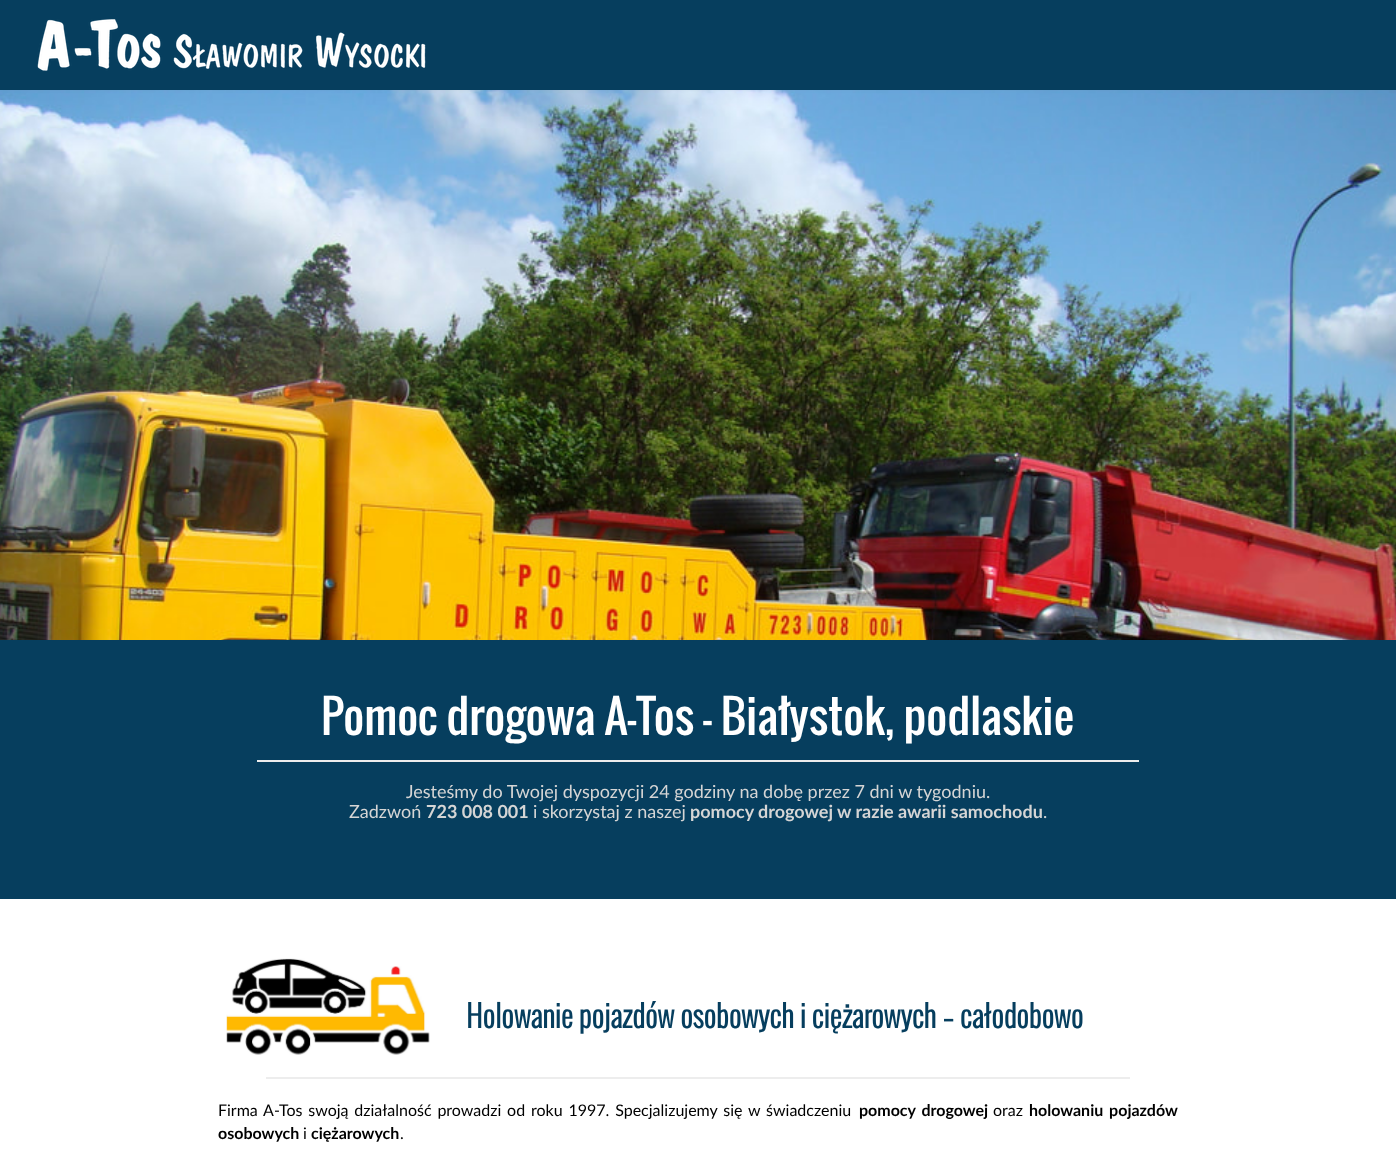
<!DOCTYPE html>
<meta charset="utf-8">
<style>body { margin: 0 } canvas { display: block }</style>
<canvas id="canvas" width="1396" height="1165"></canvas>
<script type="module">
  const canvas = document.getElementById("canvas");
  const g = canvas.getContext("2d");
  g.miterLimit = 4;
  g.fontKerning = "normal";
  function drawText(s, x, y, [font, color]) {
    g.font = font;
    g.fillStyle = color;
    g.fillText(s, x, y);
  }
  function fillBox(x, y, w, h, color) {
    g.fillStyle = color;
    g.fillRect(x, y, w, h);
  }
  async function drawPicture(src, x, y, w, h) {
    const img = new Image();
    img.src = src;
    await img.decode();
    g.drawImage(img, x, y, w, h);
  }

  const s1 = ["45px Oswald", "#FFFFFF"];
  const s2 = ["18px Lato", "#D5D5D5"];
  const s3 = ["bold 18px Lato", "#D5D5D5"];
  const s4 = ["bold 30px Oswald", "#063E5E"];
  const s5 = ["16px Lato", "#000000"];
  const s6 = ["bold 16px Lato", "#000000"];

  fillBox(0, 0, 1396, 1165, "#FFFFFF");
  await drawPicture("pic2.png", 0, 90, 1396, 550);
  g.fillStyle = "rgba(99, 99, 99, 0.1)";
  g.filter = "blur(1.5px)";
  g.beginPath();
  g.rect(0, 0, 1396, 90);
  g.fill();
  g.filter = "none";
  fillBox(0, 0, 1396, 90, "#063E5E");
  await drawPicture("pic1.png", 37, 19, 389, 52);
  fillBox(0, 640, 1396, 259, "#063E5E");
  drawText("Pomoc drogowa A-Tos – Białystok, podlaskie", 321, 735, s1);
  fillBox(257, 760, 882, 2, "#EDEDED");
  drawText("Jesteśmy do Twojej dyspozycji 24 godziny na dobę przez 7 dni w tygodniu.", 406, 798, s2);
  drawText("Zadzwoń", 349, 818, s2);
  drawText("723 008 001", 426, 818, s3);
  drawText("i skorzystaj z naszej", 533, 818, s2);
  drawText("pomocy drogowej w razie awarii samochodu", 690, 818, s3);
  drawText(".", 1043, 818, s2);
  await drawPicture("pic3.png", 226, 958, 204, 97);
  drawText("Holowanie pojazdów osobowych i ciężarowych – całodobowo", 466, 1028, s4);
  fillBox(266, 1077, 864, 2, "#EDEDED");
  g.wordSpacing = "1.75px";
  drawText("Firma A-Tos swoją działalność prowadzi od roku 1997. Specjalizujemy się w świadczeniu", 218, 1116, s5);
  g.wordSpacing = "2px";
  drawText("pomocy drogowej", 859, 1116, s6);
  g.wordSpacing = "0px";
  drawText("oraz", 993, 1116, s5);
  g.wordSpacing = "2px";
  drawText("holowaniu pojazdów", 1029, 1116, s6);
  g.wordSpacing = "0px";
  drawText("osobowych", 218, 1139, s6);
  drawText("i", 303, 1139, s5);
  drawText("ciężarowych", 311, 1139, s6);
  drawText(".", 400, 1139, s5);
</script>
